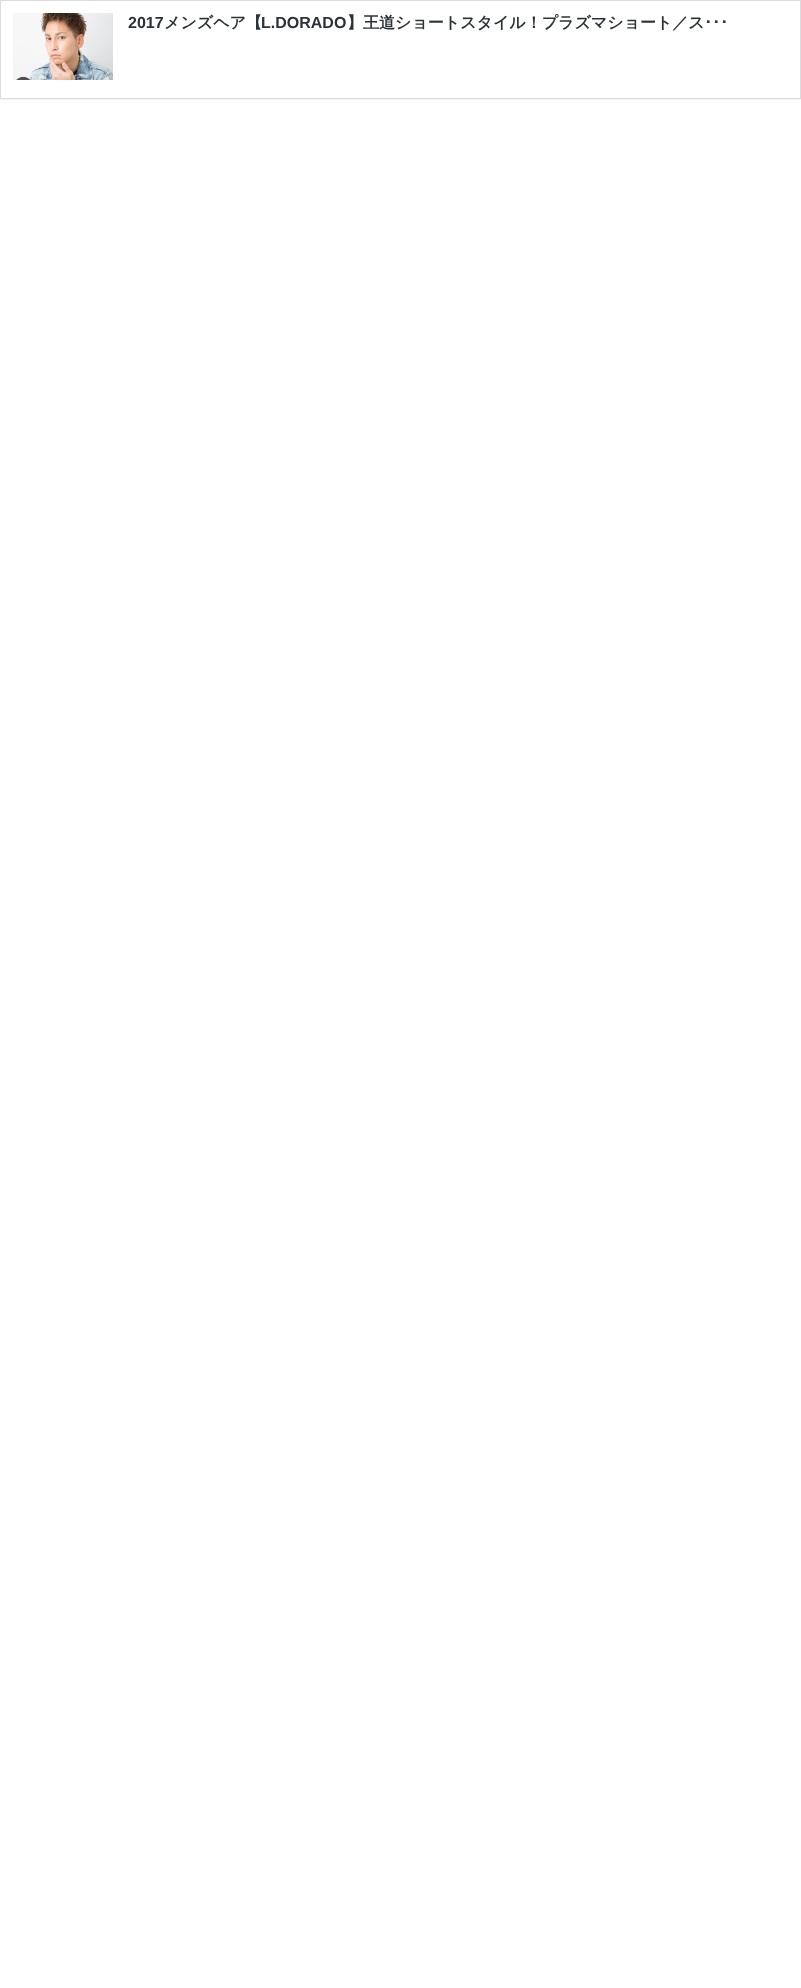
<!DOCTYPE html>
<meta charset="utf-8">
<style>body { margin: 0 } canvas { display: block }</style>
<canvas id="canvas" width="801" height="1988"></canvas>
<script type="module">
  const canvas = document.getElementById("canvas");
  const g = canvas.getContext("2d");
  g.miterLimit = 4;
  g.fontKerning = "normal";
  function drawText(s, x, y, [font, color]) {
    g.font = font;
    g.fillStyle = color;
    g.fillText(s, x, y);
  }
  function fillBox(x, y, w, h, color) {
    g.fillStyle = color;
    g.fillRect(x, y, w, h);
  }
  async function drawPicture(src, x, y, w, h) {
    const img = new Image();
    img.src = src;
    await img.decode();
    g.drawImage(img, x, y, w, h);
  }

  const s1 = ["bold 16px Liberation Sans", "#2C3338"];
  const s2 = ["bold 16px WenQuanYi Zen Hei", "#2C3338"];
  const s3 = ["bold 16px IPAPGothic", "#2C3338"];

  fillBox(0, 0, 801, 1988, "#FFFFFF");
  g.save();
  g.beginPath();
  g.rect(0, 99, 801, 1);
  g.clip();
  g.fillStyle = "rgba(0, 0, 0, 0.05)";
  g.filter = "blur(0.5px)";
  g.beginPath();
  g.rect(0, 1, 801, 99);
  g.fill();
  g.filter = "none";
  g.restore();
  g.strokeStyle = "#DCDCDE";
  g.strokeRect(0.5, 0.5, 800, 98);
  await drawPicture("pic1.png", 13, 13, 100, 67);
  drawText("2017", 128, 28, s1);
  drawText("メンズヘア【", 164, 28, s2);
  drawText("L.DORADO", 261, 28, s1);
  drawText("】王道ショートスタイル！プラズマショート／ス", 347, 28, s2);
  drawText("･･･", 704, 28, s3);
</script>
